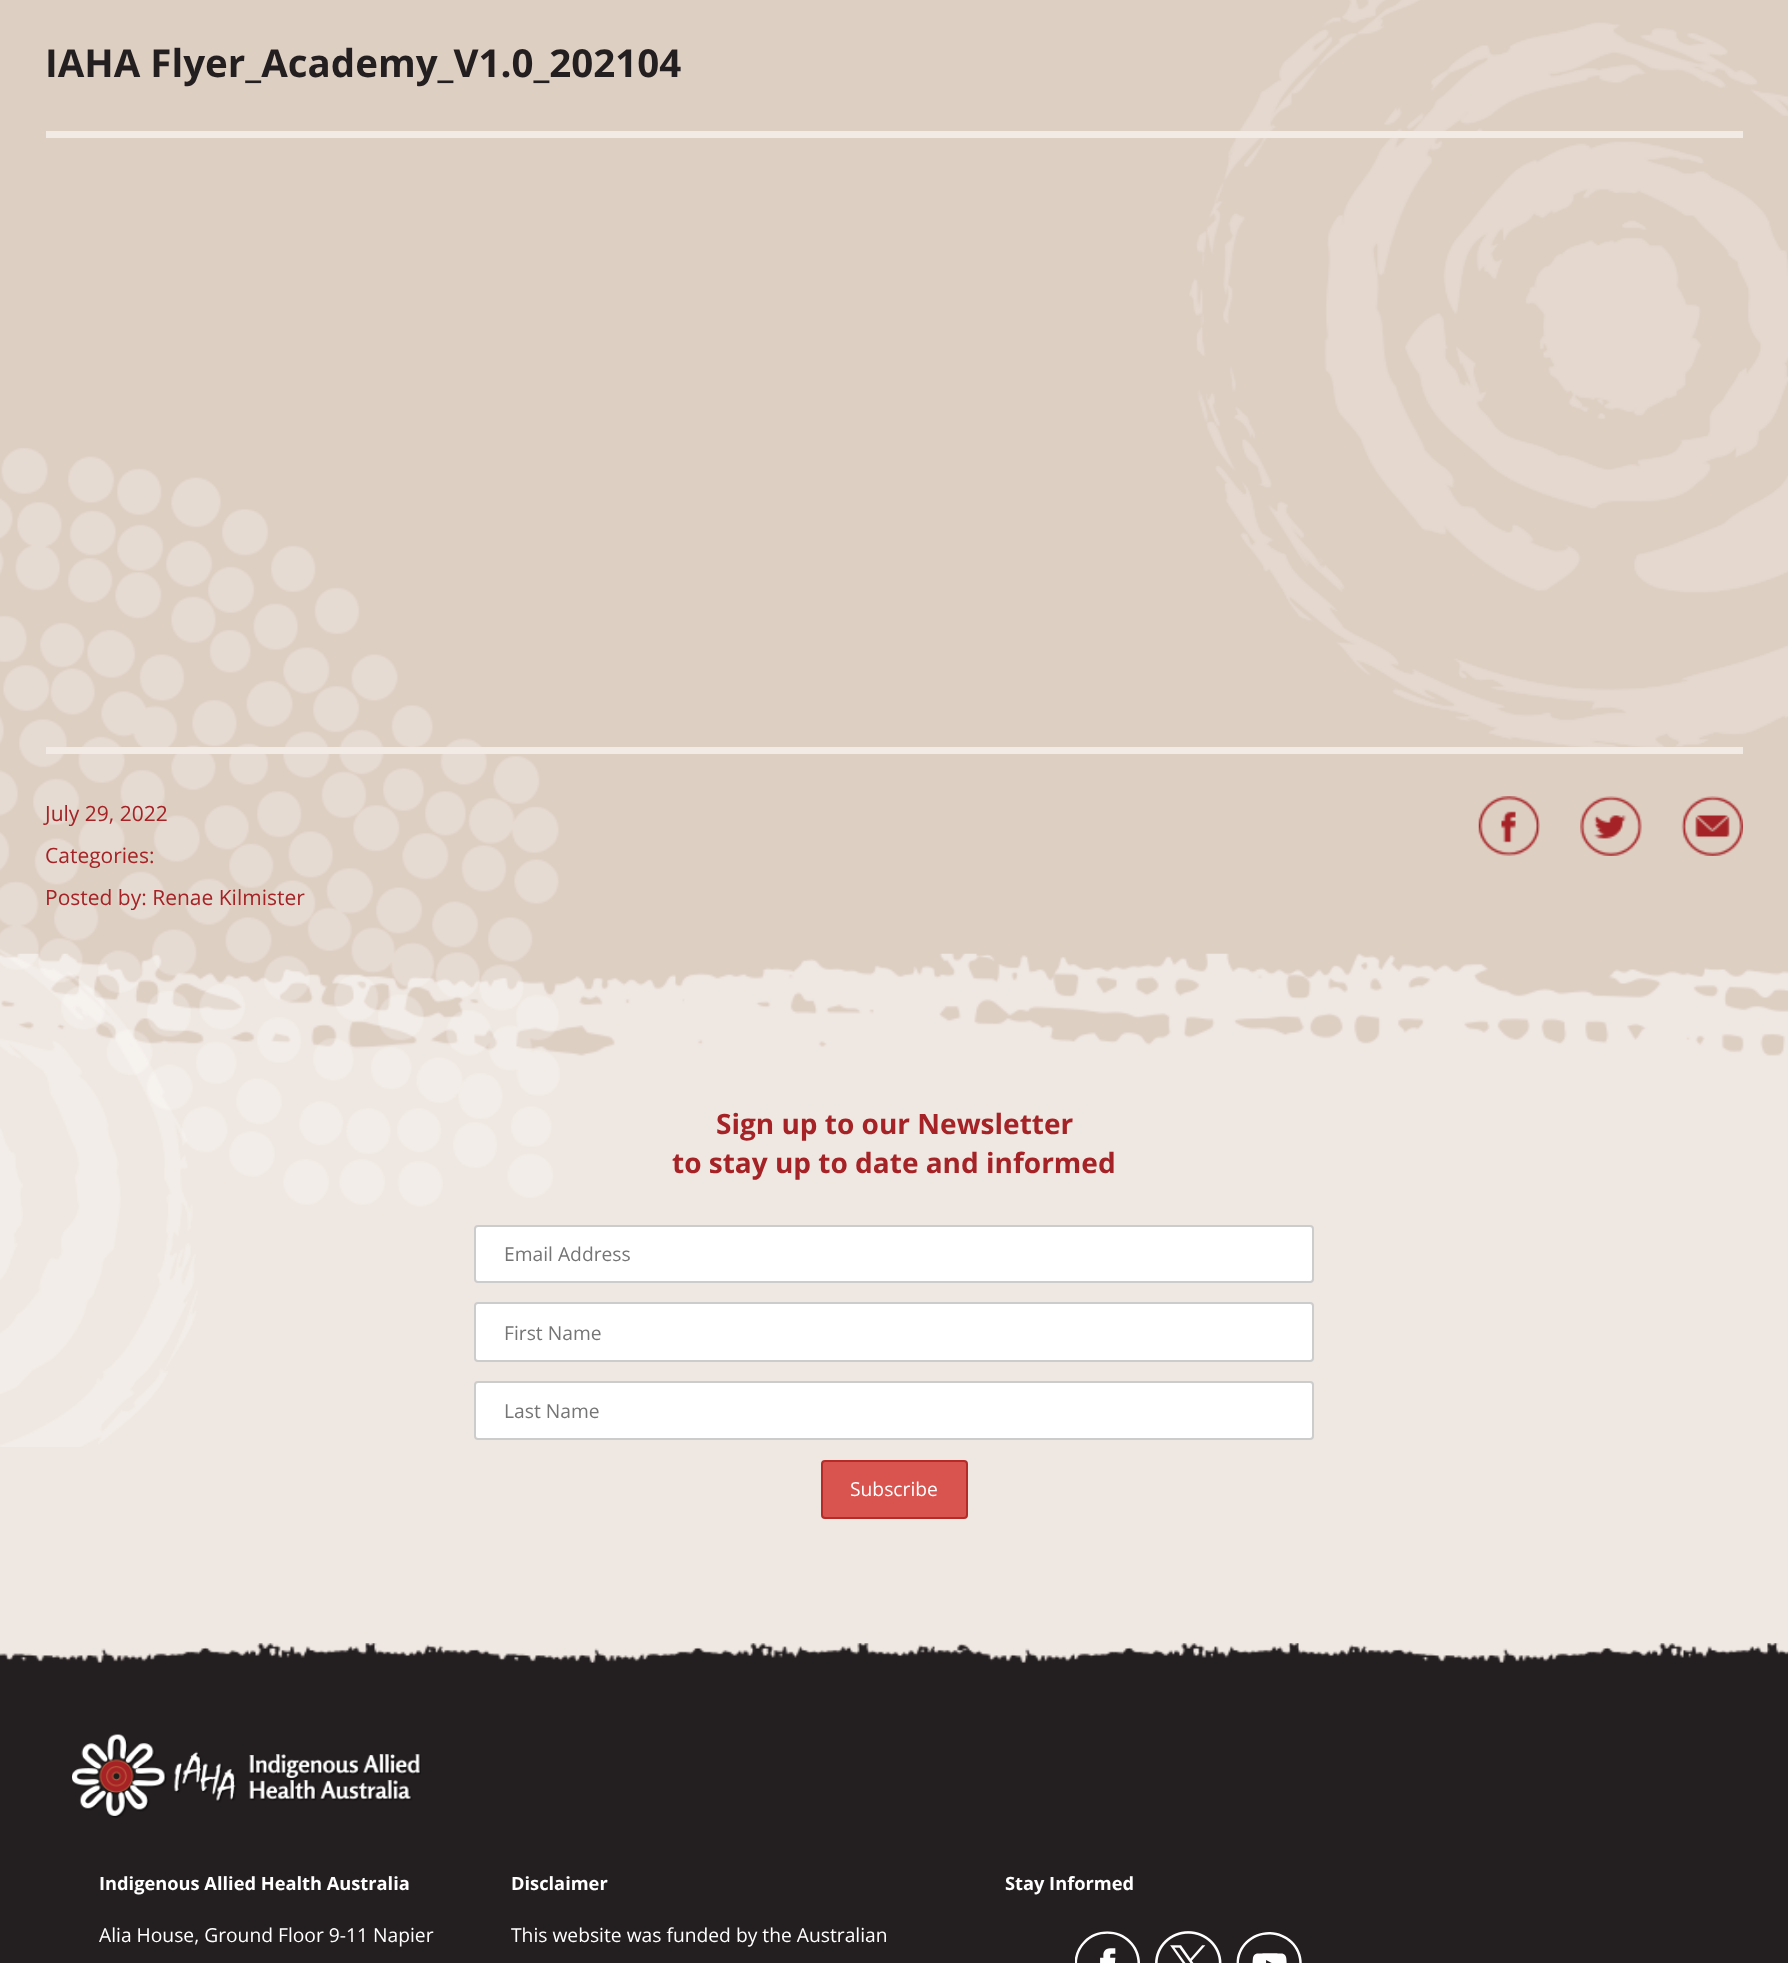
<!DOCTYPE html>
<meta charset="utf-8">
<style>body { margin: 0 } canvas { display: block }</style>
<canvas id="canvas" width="1788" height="1963"></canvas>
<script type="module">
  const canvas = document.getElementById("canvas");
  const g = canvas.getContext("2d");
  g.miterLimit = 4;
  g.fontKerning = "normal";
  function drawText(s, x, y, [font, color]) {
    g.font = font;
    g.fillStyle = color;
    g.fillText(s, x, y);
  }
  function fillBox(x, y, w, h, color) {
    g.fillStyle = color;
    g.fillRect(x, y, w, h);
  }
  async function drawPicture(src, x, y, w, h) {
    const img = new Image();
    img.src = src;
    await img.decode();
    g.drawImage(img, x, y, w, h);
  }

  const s1 = ["bold 38.5px Open Sans", "#231E20"];
  const s2 = ["21px Open Sans", "#A52326"];
  const s3 = ["bold 28px Open Sans", "#A52326"];
  const s4 = ["19.25px Open Sans", "#757575"];
  const s5 = ["19.25px Open Sans", "#FFFFFF"];
  const s6 = ["bold 18.25px Open Sans", "#FFFFFF"];

  fillBox(0, 0, 1788, 1963, "#DECFC3");
  drawText("IAHA Flyer_Academy_V1.0_202104", 45, 77, s1);
  await drawPicture("pic4.png", 1189, 0, 599, 747);
  fillBox(46, 131, 1697, 7, "#F1EAE5");
  await drawPicture("pic5.png", 0, 448, 560, 999);
  fillBox(46, 747, 1697, 7, "#F1EAE5");
  drawText("July 29, 2022", 45, 821, s2);
  drawText("Categories:", 45, 863, s2);
  drawText("Posted by: Renae Kilmister", 45, 905, s2);
  await drawPicture("pic1.png", 1478, 796, 62, 60);
  await drawPicture("pic2.png", 1580, 796, 62, 60);
  await drawPicture("pic3.png", 1681, 796, 62, 60);
  fillBox(0, 1104, 1788, 559, "rgba(255, 255, 255, 0.5)");
  await drawPicture("pic6.png", 0, 953, 1788, 151);
  drawText("Sign up to our Newsletter", 716, 1134, s3);
  drawText("to stay up to date and informed", 672, 1173, s3);
  g.fillStyle = "#FFFFFF";
  g.beginPath();
  g.roundRect(475, 1226, 838, 56, 3);
  g.fill();
  g.strokeStyle = "#CCCCCC";
  g.lineWidth = 2;
  g.stroke();
  drawText("Email Address", 504, 1261, s4);
  g.fillStyle = "#FFFFFF";
  g.beginPath();
  g.roundRect(475, 1303, 838, 58, 3);
  g.fill();
  g.stroke();
  drawText("First Name", 504, 1340, s4);
  g.fillStyle = "#FFFFFF";
  g.beginPath();
  g.roundRect(475, 1382, 838, 57, 3);
  g.fill();
  g.stroke();
  drawText("Last Name", 504, 1418, s4);
  g.fillStyle = "#D9534F";
  g.beginPath();
  g.roundRect(822, 1461, 145, 57, 3);
  g.fill();
  g.strokeStyle = "#B52B27";
  g.stroke();
  drawText("Subscribe", 850, 1496, s5);
  fillBox(0, 1678, 1788, 285, "#231E20");
  await drawPicture("pic7.png", 0, 1643, 1788, 35);
  await drawPicture("pic8.png", 72, 1734, 349, 84);
  drawText("Indigenous Allied Health Australia", 99, 1890, s6);
  drawText("Alia House, Ground Floor 9-11 Napier", 99, 1942, s5);
  drawText("Disclaimer", 511, 1890, s6);
  drawText("This website was funded by the Australian", 511, 1942, s5);
  drawText("Stay Informed", 1005, 1890, s6);
  await drawPicture("pic9.png", 1075, 1931, 65, 32);
  await drawPicture("pic10.png", 1155, 1931, 67, 32);
  await drawPicture("pic11.png", 1236, 1932, 66, 31);
</script>
